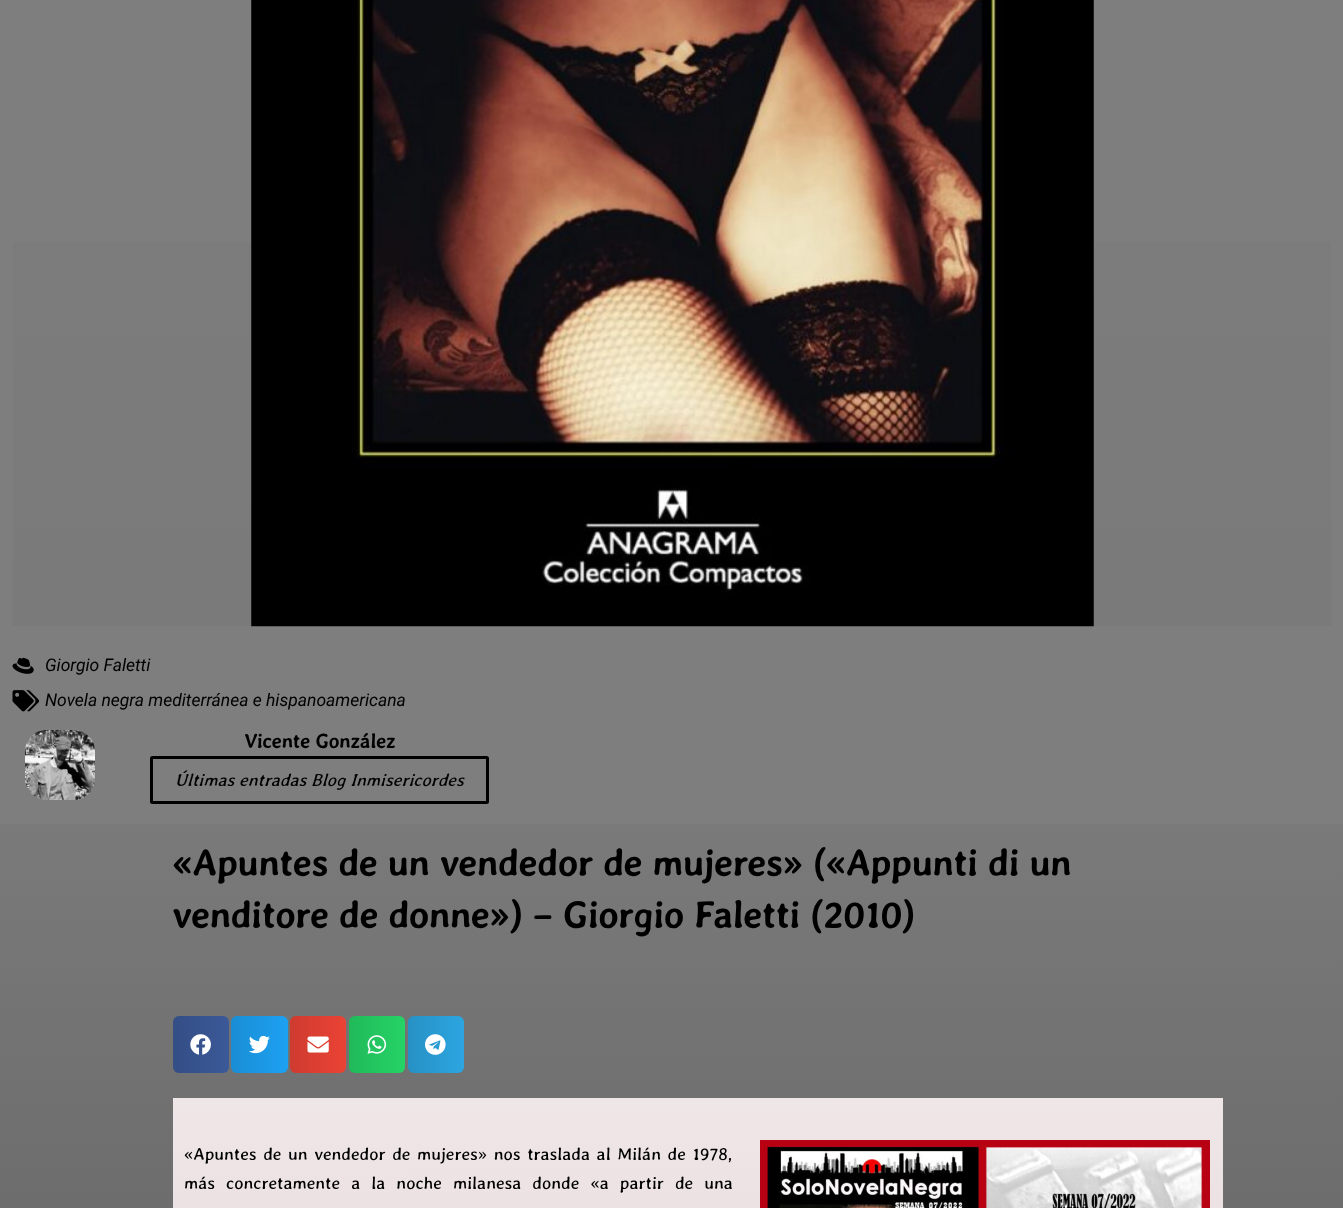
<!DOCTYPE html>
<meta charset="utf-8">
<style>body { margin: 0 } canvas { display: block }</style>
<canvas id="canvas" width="1343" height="1208"></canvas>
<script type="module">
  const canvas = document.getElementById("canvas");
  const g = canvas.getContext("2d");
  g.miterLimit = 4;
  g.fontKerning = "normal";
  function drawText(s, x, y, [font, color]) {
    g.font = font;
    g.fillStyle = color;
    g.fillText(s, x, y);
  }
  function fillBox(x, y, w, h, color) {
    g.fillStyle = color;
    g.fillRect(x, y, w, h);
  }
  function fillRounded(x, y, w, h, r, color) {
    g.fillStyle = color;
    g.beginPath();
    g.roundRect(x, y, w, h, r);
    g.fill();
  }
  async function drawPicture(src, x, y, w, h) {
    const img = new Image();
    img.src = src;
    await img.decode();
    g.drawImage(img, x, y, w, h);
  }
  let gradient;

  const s1 = ["italic 17.5px Roboto", "#000000"];
  const s2 = ["bold 20px Averia Gruesa Libre", "#000000"];
  const s3 = ["italic 17.5px Averia Gruesa Libre", "#000000"];
  const s4 = ["bold 37.5px Averia Gruesa Libre", "#000000"];
  const s5 = ["17.5px Averia Gruesa Libre", "#000000"];

  fillBox(0, 0, 1343, 1208, "#848484");
  fillBox(0, 0, 1343, 824, "#7E7E7E");
  gradient = g.createLinearGradient(672, -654, 672, 626);
  gradient.addColorStop(0, "#7F7F7F");
  gradient.addColorStop(1, "#7A7A7A");
  g.fillStyle = gradient;
  g.fillRect(13, 242, 1318, 384);
  await drawPicture("pic1.png", 251, 0, 843, 627);
  await drawPicture("pic2.png", 12, 657, 22, 17);
  drawText("Giorgio Faletti", 45, 671, s1);
  await drawPicture("pic3.png", 12, 690, 27, 22);
  drawText("Novela negra mediterránea e hispanoamericana", 45, 706, s1);
  await drawPicture("pic4.png", 25, 730, 70, 70);
  drawText("Vicente González", 244, 748, s2);
  g.beginPath();
  g.roundRect(151.5, 757.5, 336, 45, 1);
  g.strokeStyle = "#000000";
  g.lineWidth = 3;
  g.stroke();
  drawText("Últimas entradas Blog Inmisericordes", 175, 786, s3);
  gradient = g.createLinearGradient(672, 824, 672, 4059);
  gradient.addColorStop(0, "#7A7A7A");
  gradient.addColorStop(1, "rgba(2, 1, 1, 0.44)");
  g.fillStyle = gradient;
  g.fillRect(0, 824, 1343, 384);
  drawText("«Apuntes de un vendedor de mujeres» («Appunti di un", 172, 876, s4);
  drawText("venditore de donne») – Giorgio Faletti (2010)", 172, 928, s4);
  fillRounded(173, 1016, 56, 57, 6, "#3B5998");
  gradient = g.createLinearGradient(173, 1044, 229, 1044);
  gradient.addColorStop(0, "rgba(0, 0, 0, 0.12)");
  gradient.addColorStop(1, "rgba(0, 0, 0, 0)");
  g.fillStyle = gradient;
  g.beginPath();
  g.roundRect(173, 1016, 56, 57, 6);
  g.fill();
  await drawPicture("pic5.png", 190, 1034, 21, 21);
  fillRounded(231, 1016, 57, 57, 6, "#1DA1F2");
  gradient = g.createLinearGradient(231, 1044, 288, 1044);
  gradient.addColorStop(0, "rgba(0, 0, 0, 0.12)");
  gradient.addColorStop(1, "rgba(0, 0, 0, 0)");
  g.fillStyle = gradient;
  g.beginPath();
  g.roundRect(231, 1016, 57, 57, 6);
  g.fill();
  await drawPicture("pic6.png", 249, 1035, 21, 19);
  fillRounded(290, 1016, 56, 57, 6, "#EA4335");
  gradient = g.createLinearGradient(290, 1044, 346, 1044);
  gradient.addColorStop(0, "rgba(0, 0, 0, 0.12)");
  gradient.addColorStop(1, "rgba(0, 0, 0, 0)");
  g.fillStyle = gradient;
  g.beginPath();
  g.roundRect(290, 1016, 56, 57, 6);
  g.fill();
  await drawPicture("pic7.png", 307, 1036, 22, 17);
  fillRounded(349, 1016, 56, 57, 6, "#25D366");
  gradient = g.createLinearGradient(349, 1044, 405, 1044);
  gradient.addColorStop(0, "rgba(0, 0, 0, 0.12)");
  gradient.addColorStop(1, "rgba(0, 0, 0, 0)");
  g.fillStyle = gradient;
  g.beginPath();
  g.roundRect(349, 1016, 56, 57, 6);
  g.fill();
  await drawPicture("pic8.png", 367, 1035, 20, 19);
  fillRounded(408, 1016, 56, 57, 6, "#2CA5E0");
  gradient = g.createLinearGradient(408, 1044, 464, 1044);
  gradient.addColorStop(0, "rgba(0, 0, 0, 0.12)");
  gradient.addColorStop(1, "rgba(0, 0, 0, 0)");
  g.fillStyle = gradient;
  g.beginPath();
  g.roundRect(408, 1016, 56, 57, 6);
  g.fill();
  await drawPicture("pic9.png", 425, 1034, 21, 21);
  gradient = g.createLinearGradient(697, 1098, 698, 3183);
  gradient.addColorStop(0, "#EFE6E8");
  gradient.addColorStop(1, "#B69BA2");
  g.fillStyle = gradient;
  g.fillRect(173, 1098, 1050, 110);
  g.wordSpacing = "1.8px";
  drawText("«Apuntes de un vendedor de mujeres» nos traslada al Milán de 1978,", 184, 1160, s5);
  await drawPicture("pic10.png", 760, 1140, 450, 68);
  g.wordSpacing = "6.25px";
  drawText("más concretamente a la noche milanesa donde «a partir de una", 184, 1189, s5);
</script>
